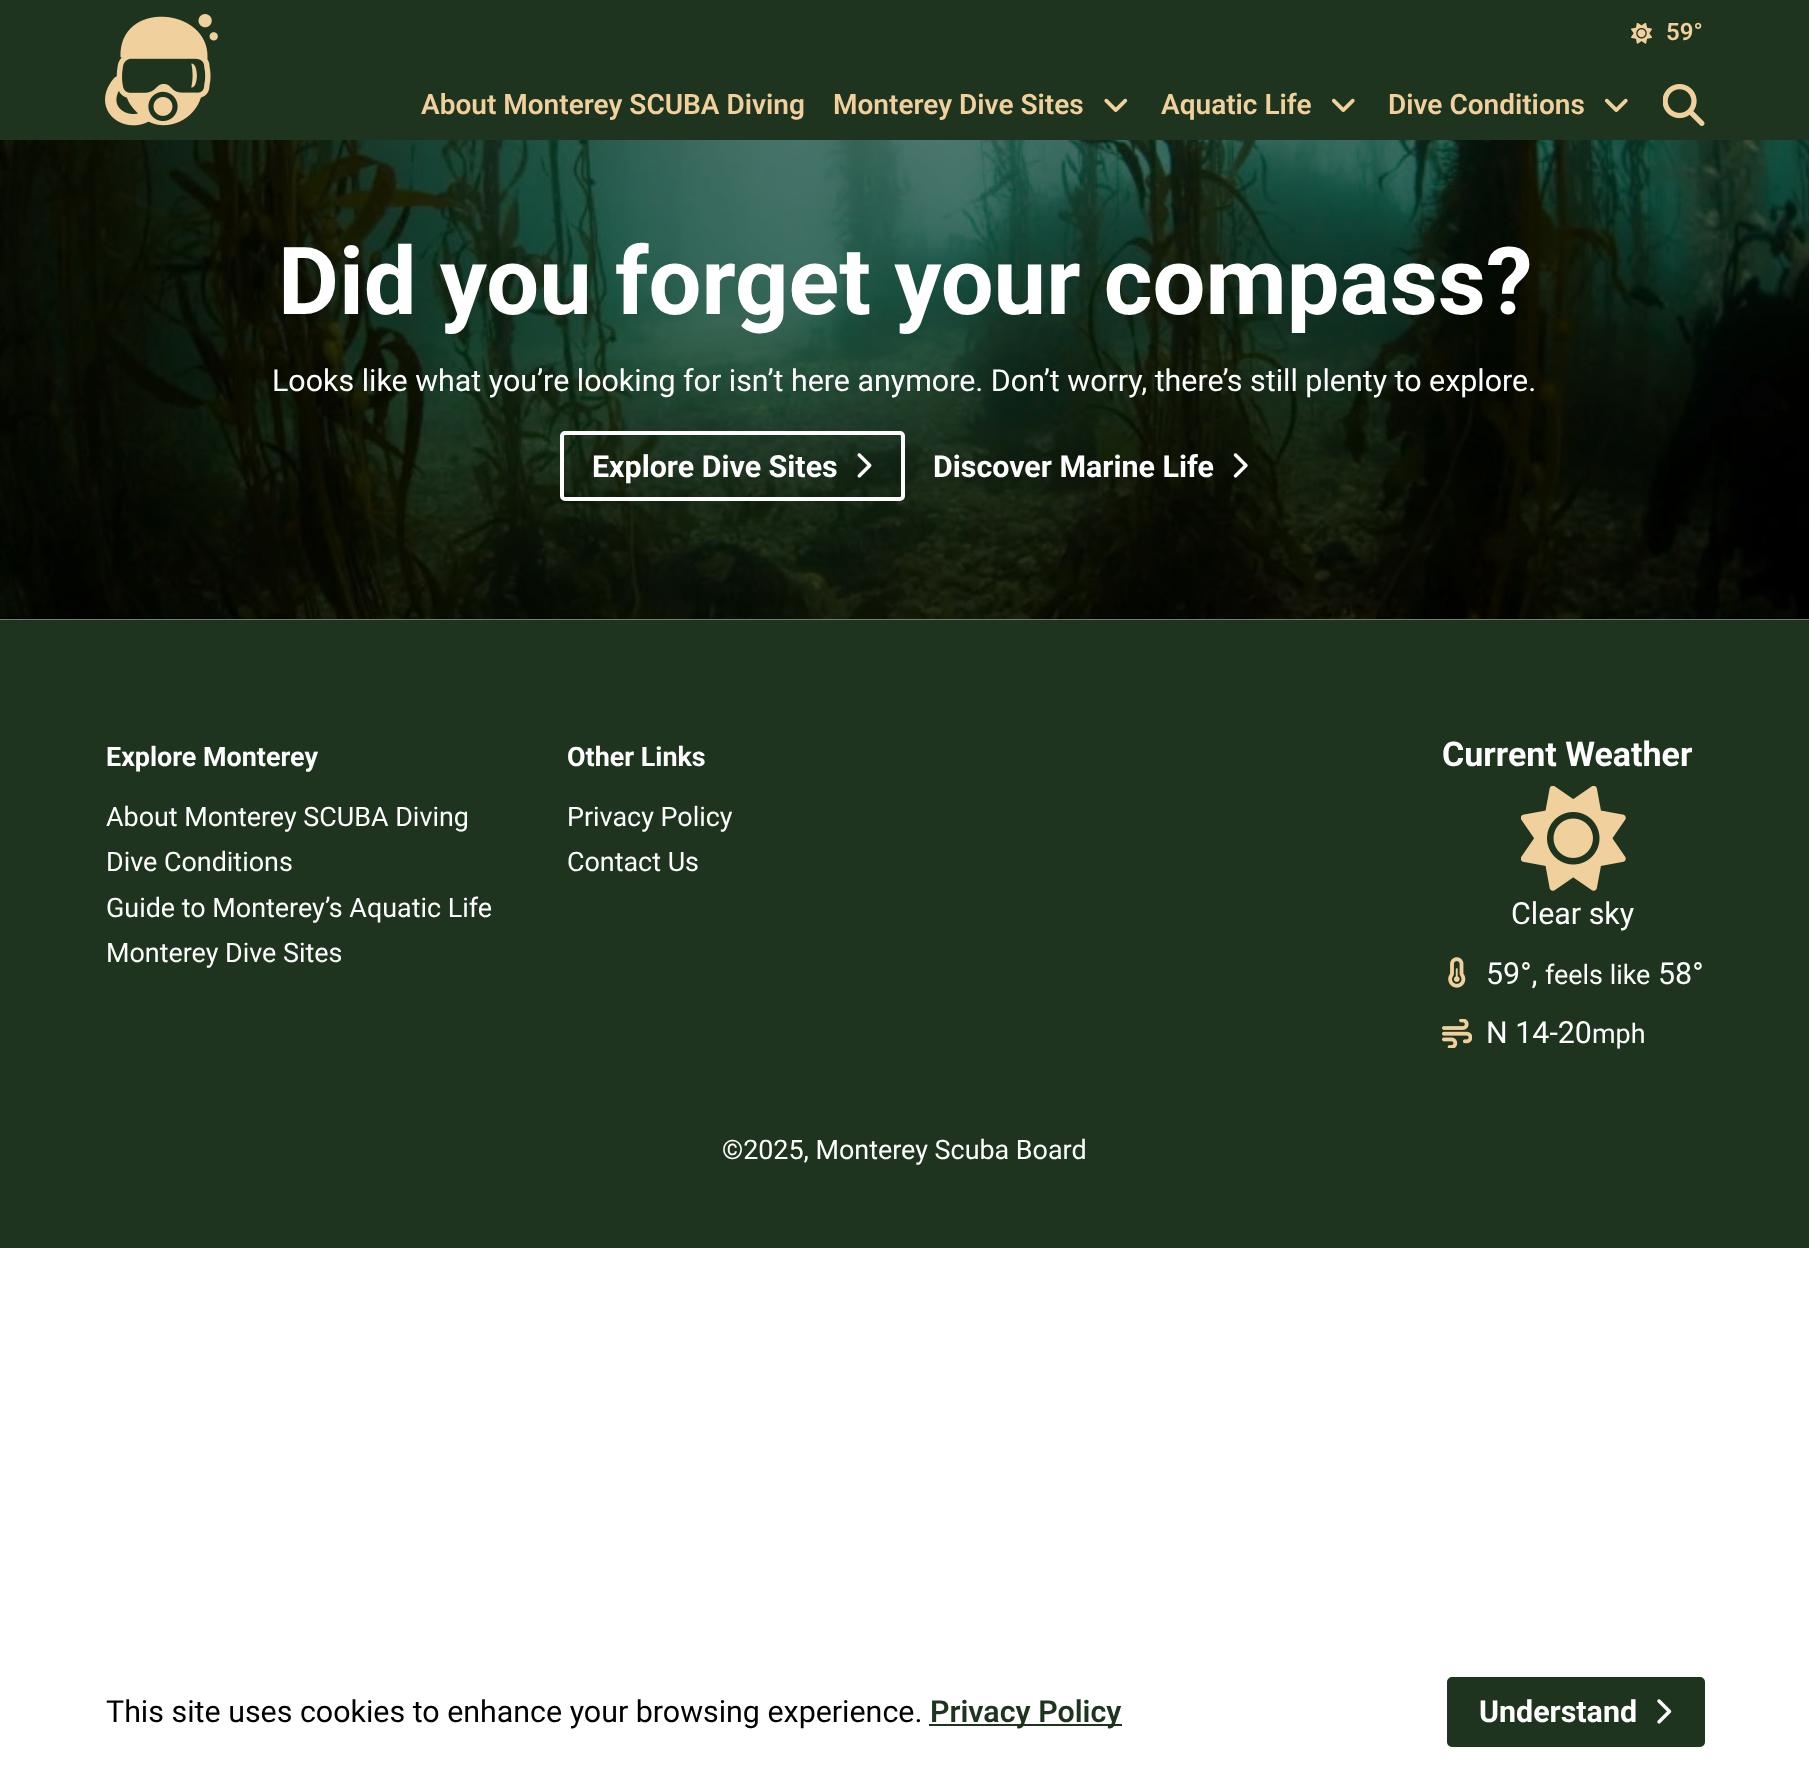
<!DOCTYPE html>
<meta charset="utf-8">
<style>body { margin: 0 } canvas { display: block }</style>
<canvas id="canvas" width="1809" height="1774"></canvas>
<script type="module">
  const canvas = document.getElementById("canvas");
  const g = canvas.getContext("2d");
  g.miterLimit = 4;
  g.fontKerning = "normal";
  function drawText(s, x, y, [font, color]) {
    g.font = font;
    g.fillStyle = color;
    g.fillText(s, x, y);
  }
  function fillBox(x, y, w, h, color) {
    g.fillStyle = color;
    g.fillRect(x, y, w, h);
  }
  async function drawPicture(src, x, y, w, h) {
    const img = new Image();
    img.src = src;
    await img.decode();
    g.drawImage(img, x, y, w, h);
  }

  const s1 = ["600 24px Roboto", "#F0D19D"];
  const s2 = ["600 28px Roboto", "#F0D19D"];
  const s3 = ["bold 93.75px Roboto", "#FFFFFF"];
  const s4 = ["30.4px Roboto", "#FFFFFF"];
  const s5 = ["bold 30.4px Roboto", "#FFFFFF"];
  const s6 = ["bold 26.9px Roboto", "#FFFFFF"];
  const s7 = ["26.9px Roboto", "#FFFFFF"];
  const s8 = ["bold 34px Roboto", "#FFFFFF"];
  const s9 = ["30.4px Roboto", "#000000"];
  const s10 = ["600 30.4px Roboto", "#1E341E"];

  fillBox(0, 0, 1809, 1774, "#FFFFFF");
  fillBox(0, 619, 1809, 1, "#808080");
  fillBox(0, 0, 1809, 140, "#1E341E");
  await drawPicture("pic1.png", 105, 14, 113, 112);
  await drawPicture("pic2.png", 1631, 23, 21, 21);
  drawText("59°", 1666, 40, s1);
  drawText("About Monterey SCUBA Diving", 421, 114, s2);
  drawText("Monterey Dive Sites", 833, 114, s2);
  await drawPicture("pic3.png", 1104, 98, 24, 14);
  drawText("Aquatic Life", 1161, 114, s2);
  await drawPicture("pic4.png", 1331, 98, 24, 14);
  drawText("Dive Conditions", 1388, 114, s2);
  await drawPicture("pic4.png", 1604, 98, 24, 14);
  await drawPicture("pic5.png", 1663, 84, 42, 42);
  await drawPicture("pic6.png", 0, 140, 1809, 480);
  drawText("Did you forget your compass?", 278, 314, s3);
  drawText("Looks like what you’re looking for isn’t here anymore. Don’t worry, there’s still plenty to explore.", 272, 391, s4);
  g.beginPath();
  g.roundRect(562, 433, 341, 66, 3);
  g.strokeStyle = "#FFFFFF";
  g.lineWidth = 4;
  g.stroke();
  drawText("Explore Dive Sites", 592, 477, s5);
  await drawPicture("pic7.png", 857, 453, 15, 25);
  drawText("Discover Marine Life", 933, 477, s5);
  await drawPicture("pic8.png", 1233, 453, 15, 25);
  fillBox(0, 620, 1809, 628, "#1E341E");
  drawText("Explore Monterey", 106, 766, s6);
  drawText("About Monterey SCUBA Diving", 106, 826, s7);
  drawText("Dive Conditions", 106, 871, s7);
  drawText("Guide to Monterey’s Aquatic Life", 106, 917, s7);
  drawText("Monterey Dive Sites", 106, 962, s7);
  drawText("Other Links", 567, 766, s6);
  drawText("Privacy Policy", 567, 826, s7);
  drawText("Contact Us", 567, 871, s7);
  drawText("Current Weather", 1442, 766, s8);
  await drawPicture("pic9.png", 1521, 786, 105, 105);
  drawText("Clear sky", 1511, 924, s4);
  await drawPicture("pic10.png", 1448, 957, 18, 31);
  drawText("59°,", 1486, 984, s4);
  drawText("feels like", 1545, 984, s7);
  drawText("58°", 1658, 984, s4);
  await drawPicture("pic11.png", 1442, 1019, 30, 29);
  drawText("N 14-20", 1486, 1043, s4);
  drawText("mph", 1592, 1043, s7);
  drawText("©2025, Monterey Scuba Board", 722, 1159, s7);
  drawText("This site uses cookies to enhance your browsing experience.", 106, 1722, s9);
  fillBox(929, 1724, 193, 2, "#1E341E");
  drawText("Privacy Policy", 930, 1722, s10);
  g.beginPath();
  g.roundRect(1449, 1679, 254, 66, 3);
  g.fill();
  g.strokeStyle = "#1E341E";
  g.stroke();
  drawText("Understand", 1479, 1722, s5);
  await drawPicture("pic12.png", 1657, 1699, 15, 25);
</script>
